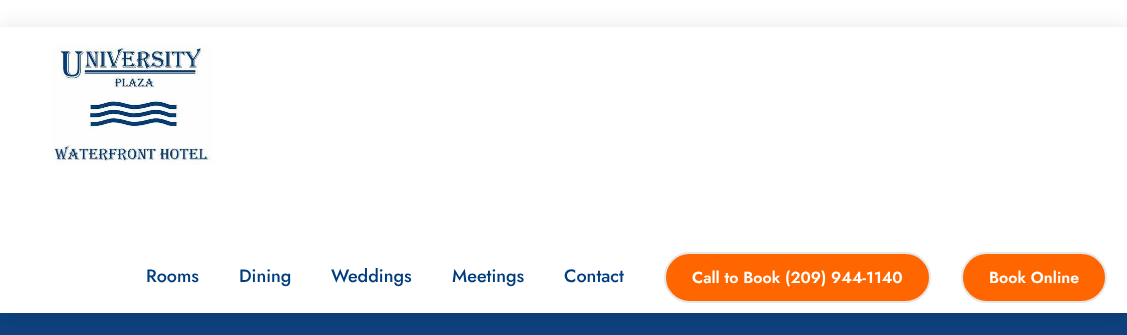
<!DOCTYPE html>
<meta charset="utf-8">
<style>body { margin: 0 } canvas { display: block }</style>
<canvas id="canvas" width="1127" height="335"></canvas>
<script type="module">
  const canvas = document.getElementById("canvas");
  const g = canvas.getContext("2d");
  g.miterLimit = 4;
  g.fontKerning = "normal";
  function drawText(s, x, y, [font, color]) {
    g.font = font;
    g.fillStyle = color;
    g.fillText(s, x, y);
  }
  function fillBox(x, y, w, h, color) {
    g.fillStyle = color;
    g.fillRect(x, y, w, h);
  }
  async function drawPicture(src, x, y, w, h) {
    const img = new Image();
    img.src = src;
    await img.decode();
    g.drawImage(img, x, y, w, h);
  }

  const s1 = ["500 18px Jost", "#003D7E"];
  const s2 = ["600 16px Jost", "#FFFFFF"];

  fillBox(0, 0, 1127, 335, "#FFFFFF");
  fillBox(0, 313, 1127, 22, "#0E417D");
  g.save();
  g.beginPath();
  g.moveTo(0, 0);
  g.lineTo(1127, 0);
  g.lineTo(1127, 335);
  g.lineTo(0, 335);
  g.closePath();
  g.moveTo(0, 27);
  g.lineTo(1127, 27);
  g.lineTo(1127, 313);
  g.lineTo(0, 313);
  g.closePath();
  g.clip("evenodd");
  g.fillStyle = "rgba(10, 10, 10, 0.1)";
  g.filter = "blur(10px)";
  g.beginPath();
  g.rect(0, 27, 1127, 286);
  g.fill();
  g.filter = "none";
  g.restore();
  await drawPicture("pic1.png", 51, 44, 162, 121);
  drawText("Rooms", 146, 282, s1);
  drawText("Dining", 239, 282, s1);
  drawText("Weddings", 331, 282, s1);
  drawText("Meetings", 452, 282, s1);
  drawText("Contact", 564, 282, s1);
  g.fillStyle = "#FF6600";
  g.beginPath();
  g.roundRect(665, 253, 265, 49, 24.5);
  g.fill();
  g.strokeStyle = "#E6E6E6";
  g.lineWidth = 2;
  g.stroke();
  drawText("Call to Book (209) 944-1140", 692, 283, s2);
  g.fillStyle = "#FF6600";
  g.beginPath();
  g.roundRect(962, 253, 144, 49, 24.5);
  g.fill();
  g.stroke();
  drawText("Book Online", 989, 283, s2);
</script>
